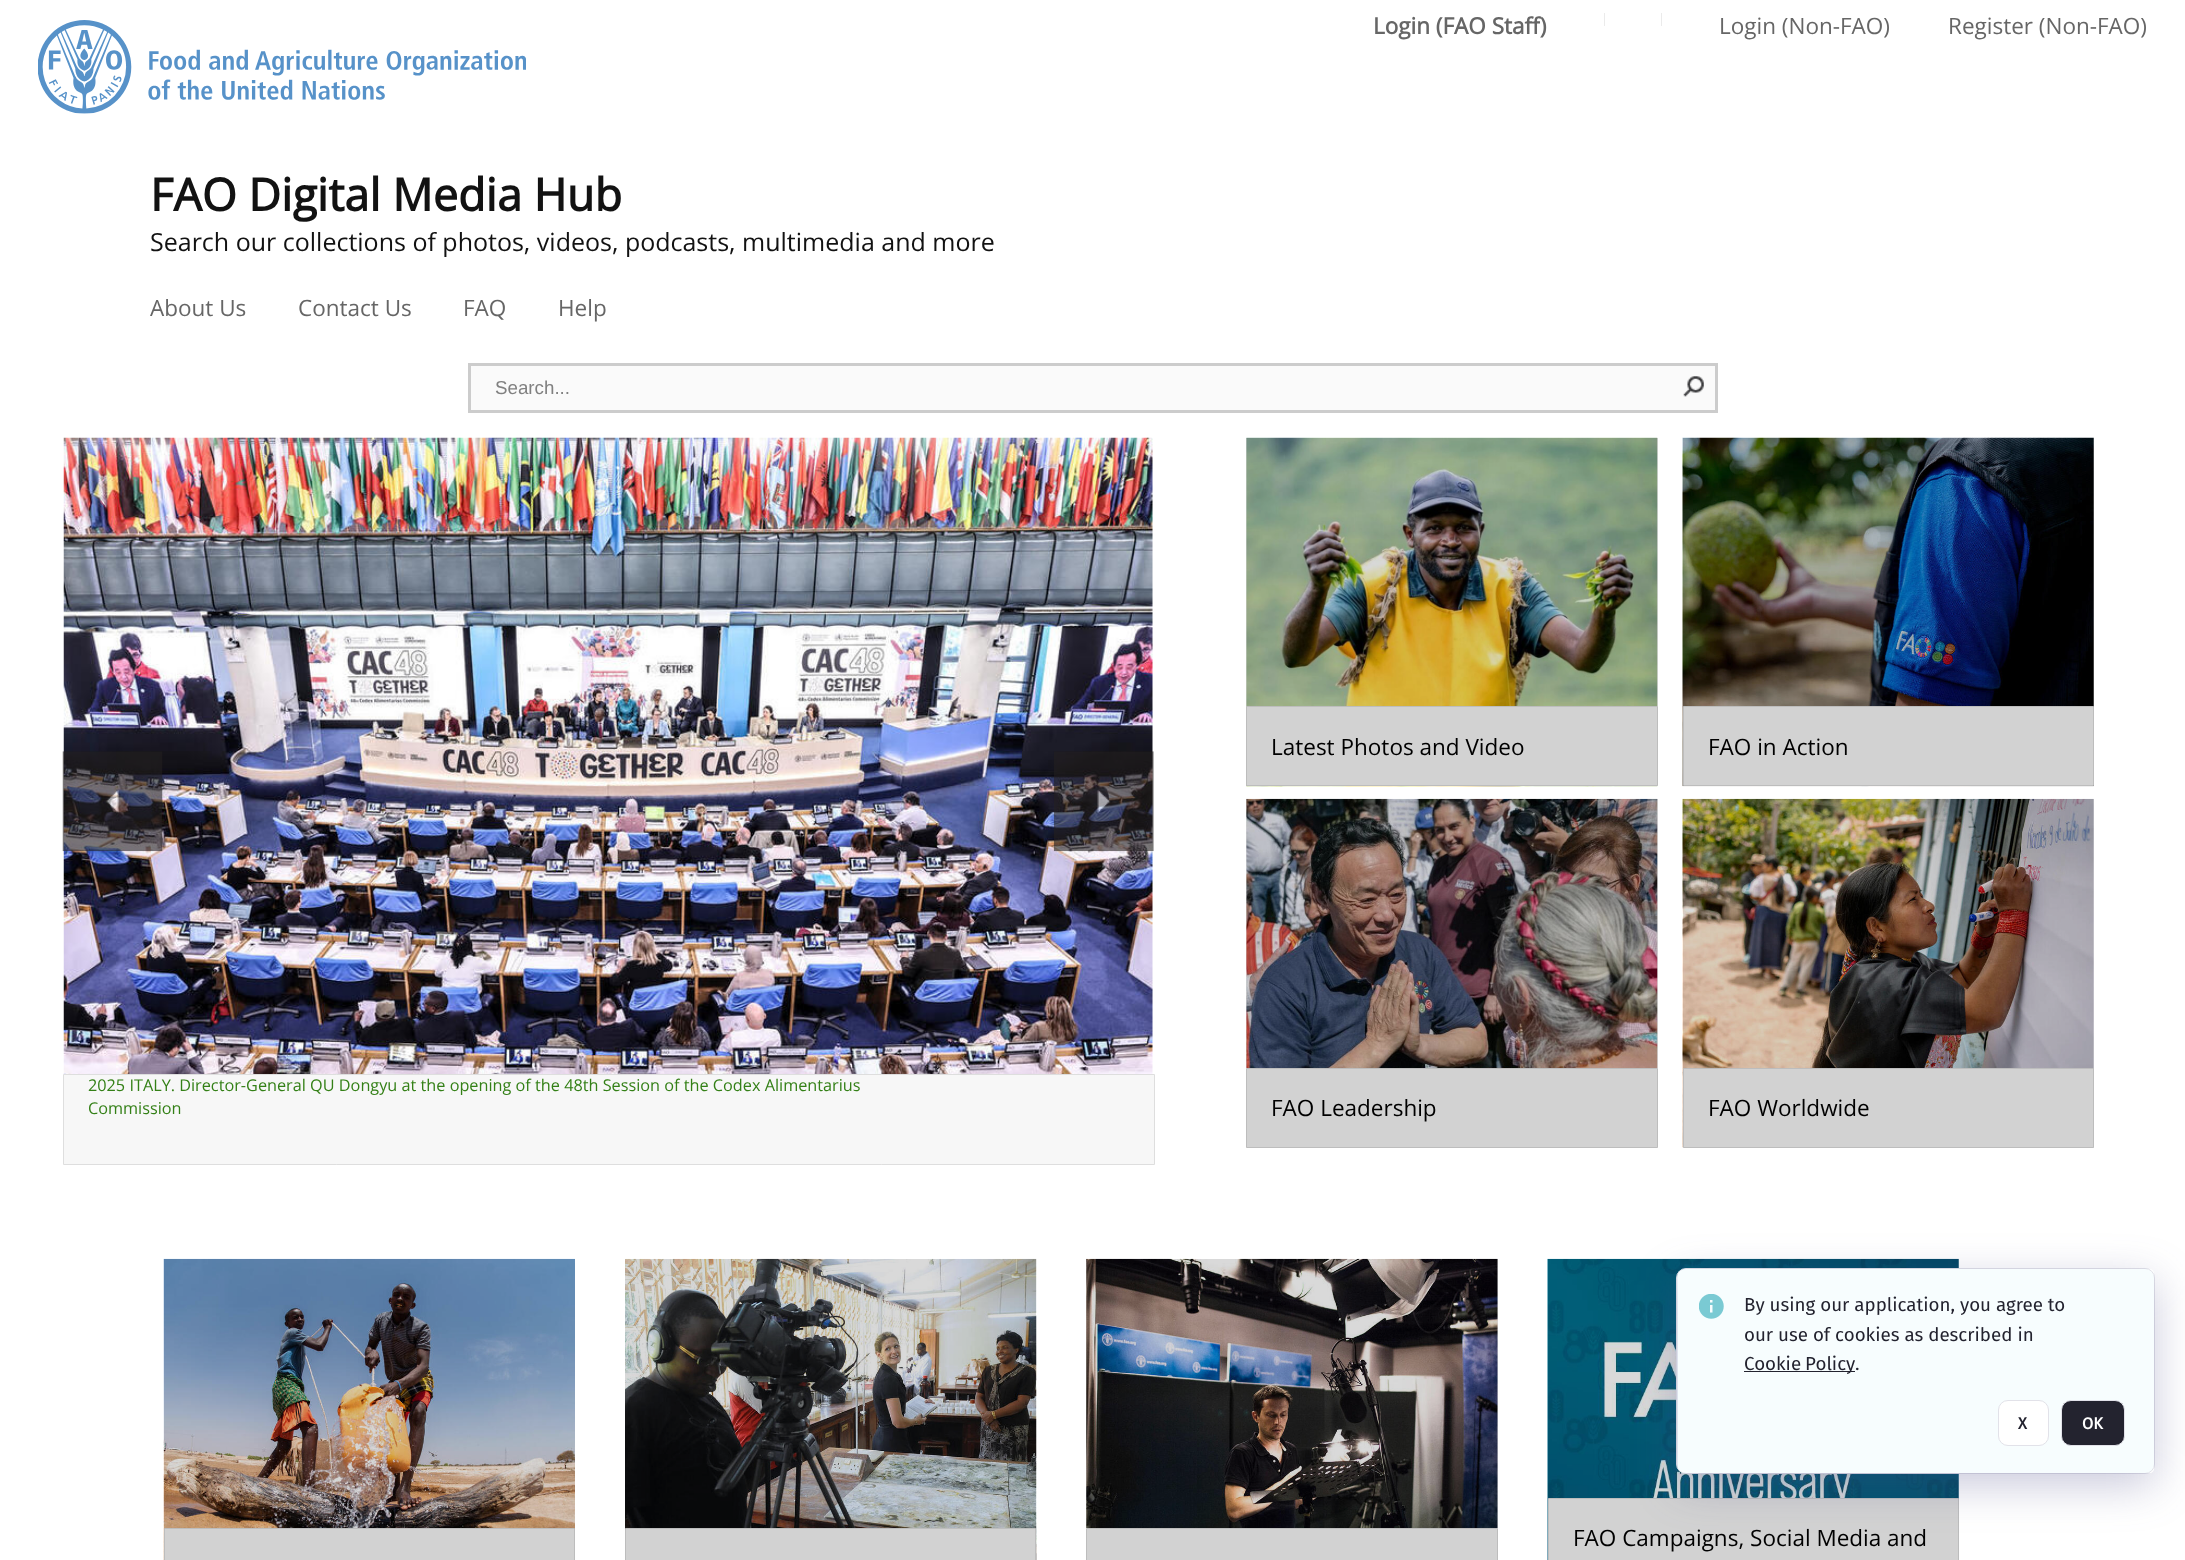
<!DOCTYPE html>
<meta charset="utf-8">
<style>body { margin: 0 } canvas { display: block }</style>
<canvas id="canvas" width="2185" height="1560"></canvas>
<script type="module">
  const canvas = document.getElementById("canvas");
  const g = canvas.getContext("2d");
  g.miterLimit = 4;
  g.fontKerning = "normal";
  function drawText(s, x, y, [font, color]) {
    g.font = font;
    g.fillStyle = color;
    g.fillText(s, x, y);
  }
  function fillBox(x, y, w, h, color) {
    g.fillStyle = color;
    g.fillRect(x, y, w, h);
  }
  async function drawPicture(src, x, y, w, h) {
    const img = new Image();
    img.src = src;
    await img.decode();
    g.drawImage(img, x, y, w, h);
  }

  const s1 = ["bold 22.5px Open Sans", "#666666"];
  const s2 = ["22.5px Open Sans", "#666666"];
  const s3 = ["bold 45px Open Sans", "#121212"];
  const s4 = ["25px Open Sans", "#121212"];
  const s5 = ["18.75px Liberation Sans", "#808080"];
  const s6 = ["16.25px Open Sans", "#348017"];
  const s7 = ["22.5px Open Sans", "#000000"];
  const s8 = ["18.75px Fira Sans", "#23232F"];
  const s9 = ["bold 16.25px Fira Sans", "#23232F"];
  const s10 = ["bold 16.25px Fira Sans", "#FFFFFF"];

  fillBox(0, 0, 2185, 1560, "#FFFFFF");
  fillBox(1086, 1259, 412, 269, "#D9D9D9");
  fillBox(1246, 799, 412, 269, "#D9D9D9");
  fillBox(1246, 438, 412, 268, "#D9D9D9");
  await drawPicture("pic1.png", 38, 20, 488, 94);
  drawText("Login (FAO Staff)", 1373, 34, s1);
  fillBox(1604, 13, 1, 13, "#EBEBEB");
  fillBox(1661, 13, 1, 13, "#EBEBEB");
  drawText("Login (Non-FAO)", 1719, 34, s2);
  drawText("Register (Non-FAO)", 1948, 34, s2);
  drawText("FAO Digital Media Hub", 150, 211, s3);
  drawText("Search our collections of photos, videos, podcasts, multimedia and more", 150, 251, s4);
  drawText("About Us", 150, 316, s2);
  drawText("Contact Us", 298, 316, s2);
  drawText("FAQ", 463, 316, s2);
  drawText("Help", 558, 316, s2);
  g.fillStyle = "#FAFAFA";
  g.beginPath();
  g.rect(469.5, 364.5, 1247, 47);
  g.fill();
  g.strokeStyle = "#CCCCCC";
  g.lineWidth = 3;
  g.stroke();
  drawText("Search...", 495, 394, s5);
  await drawPicture("pic2.png", 1683, 376, 21, 21);
  await drawPicture("pic5.png", 63, 437, 1090, 637);
  await drawPicture("pic3.png", 62, 751, 101, 101);
  await drawPicture("pic4.png", 1053, 751, 101, 101);
  g.fillStyle = "#F7F7F7";
  g.beginPath();
  g.rect(63.5, 1074.5, 1091, 90);
  g.fill();
  g.strokeStyle = "#DEDEDE";
  g.lineWidth = 1;
  g.stroke();
  drawText("2025 ITALY. Director-General QU Dongyu at the opening of the 48th Session of the Codex Alimentarius", 88, 1091, s6);
  drawText("Commission", 88, 1114, s6);
  await drawPicture("pic6.png", 1246, 437, 412, 350);
  g.fillStyle = "#D2D2D2";
  g.beginPath();
  g.rect(1246.5, 706.5, 411, 79);
  g.fill();
  g.strokeStyle = "#BDBDBD";
  g.stroke();
  drawText("Latest Photos and Video", 1271, 755, s7);
  await drawPicture("pic7.png", 1682, 437, 412, 350);
  g.fillStyle = "#D2D2D2";
  g.beginPath();
  g.rect(1683.5, 706.5, 410, 79);
  g.fill();
  g.stroke();
  drawText("FAO in Action", 1708, 755, s7);
  await drawPicture("pic8.png", 1246, 798, 412, 270);
  g.fillStyle = "#D2D2D2";
  g.beginPath();
  g.rect(1246.5, 1068.5, 411, 79);
  g.fill();
  g.stroke();
  drawText("FAO Leadership", 1271, 1116, s7);
  await drawPicture("pic9.png", 1682, 798, 412, 350);
  g.fillStyle = "#D2D2D2";
  g.beginPath();
  g.rect(1683.5, 1068.5, 410, 79);
  g.fill();
  g.stroke();
  drawText("FAO Worldwide", 1708, 1116, s7);
  await drawPicture("pic10.png", 163, 1258, 412, 302);
  g.fillStyle = "#D2D2D2";
  g.beginPath();
  g.rect(164.5, 1528.5, 410, 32);
  g.fill();
  g.stroke();
  await drawPicture("pic11.png", 625, 1258, 412, 302);
  g.beginPath();
  g.rect(625.5, 1528.5, 410, 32);
  g.fill();
  g.stroke();
  await drawPicture("pic12.png", 1086, 1258, 412, 270);
  g.beginPath();
  g.rect(1086.5, 1528.5, 411, 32);
  g.fill();
  g.stroke();
  await drawPicture("pic13.png", 1547, 1258, 412, 302);
  g.beginPath();
  g.rect(1548.5, 1498.5, 410, 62);
  g.fill();
  g.stroke();
  drawText("FAO Campaigns, Social Media and", 1573, 1546, s7);
  g.fillStyle = "#F7FDFE";
  g.beginPath();
  g.roundRect(1676.5, 1268.5, 478, 205, 9.5);
  g.fill();
  g.strokeStyle = "#E2E2E9";
  g.stroke();
  g.save();
  g.beginPath();
  g.moveTo(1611, 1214);
  g.lineTo(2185, 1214);
  g.lineTo(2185, 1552);
  g.lineTo(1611, 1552);
  g.closePath();
  g.moveTo(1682, 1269);
  g.lineTo(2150, 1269);
  g.bezierCurveTo(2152, 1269, 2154, 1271, 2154, 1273);
  g.lineTo(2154, 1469);
  g.bezierCurveTo(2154, 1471, 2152, 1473, 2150, 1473);
  g.lineTo(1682, 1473);
  g.bezierCurveTo(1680, 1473, 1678, 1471, 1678, 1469);
  g.lineTo(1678, 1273);
  g.bezierCurveTo(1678, 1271, 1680, 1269, 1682, 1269);
  g.closePath();
  g.clip("evenodd");
  g.fillStyle = "rgba(77, 77, 135, 0.3)";
  g.filter = "blur(22px)";
  g.beginPath();
  g.roundRect(1678, 1281, 476, 204, 4);
  g.fill();
  g.filter = "none";
  g.restore();
  await drawPicture("pic14.png", 1699, 1294, 25, 25);
  drawText("By using our application, you agree to", 1744, 1311, s8);
  drawText("our use of cookies as described in", 1744, 1341, s8);
  fillBox(1744, 1371, 111, 1, "#23232F");
  g.wordSpacing = "-1px";
  drawText("Cookie Policy", 1744, 1370, s8);
  g.wordSpacing = "0px";
  drawText(".", 1855, 1370, s8);
  g.fillStyle = "#FFFFFF";
  g.beginPath();
  g.roundRect(1998.5, 1400.5, 50, 45, 9.5);
  g.fill();
  g.stroke();
  drawText("X", 2018, 1429, s9);
  g.beginPath();
  g.roundRect(2061.5, 1400.5, 63, 45, 9.5);
  g.fill();
  g.stroke();
  drawText("OK", 2082, 1429, s10);
</script>
